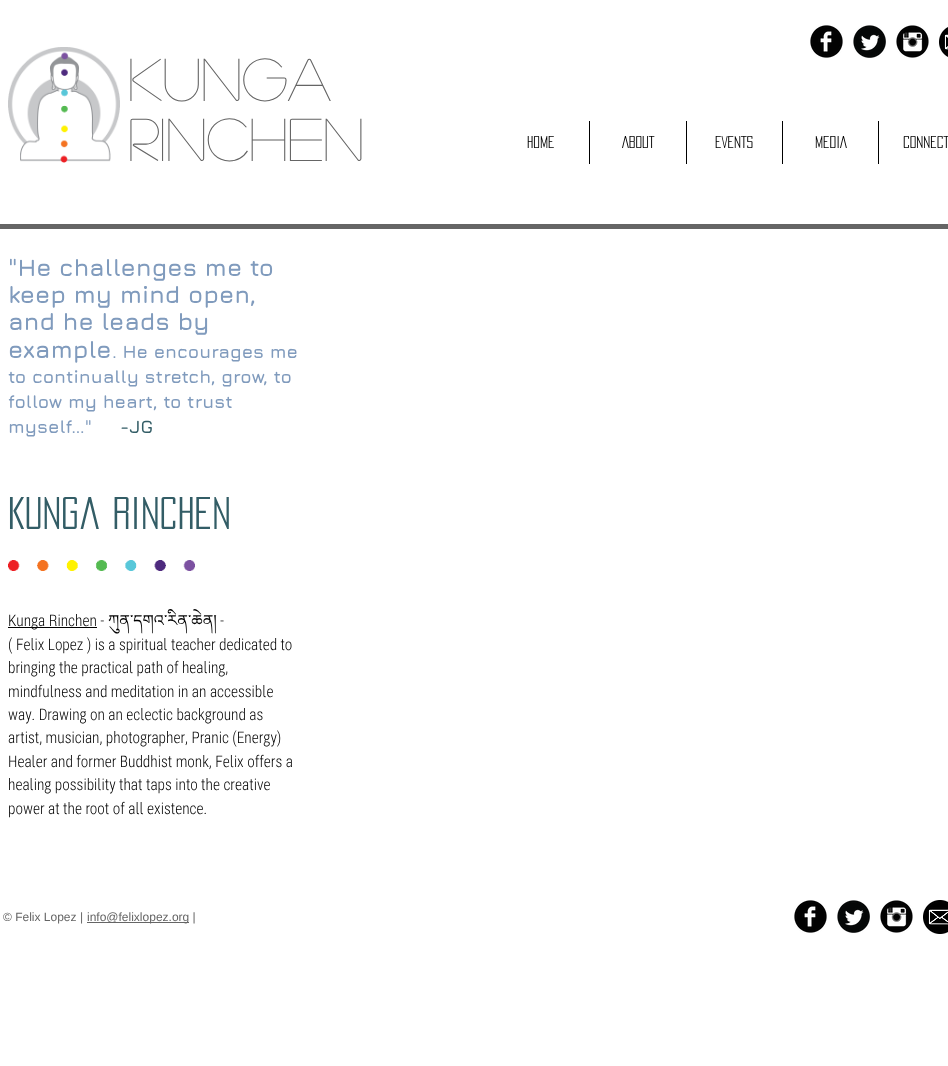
<!DOCTYPE html>
<meta charset="utf-8">
<style>body { margin: 0 } canvas { display: block }</style>
<canvas id="canvas" width="948" height="1066"></canvas>
<script type="module">
  const canvas = document.getElementById("canvas");
  const g = canvas.getContext("2d");
  g.miterLimit = 4;
  g.fontKerning = "normal";
  function drawText(s, x, y, [font, color]) {
    g.font = font;
    g.fillStyle = color;
    g.fillText(s, x, y);
  }
  function fillBox(x, y, w, h, color) {
    g.fillStyle = color;
    g.fillRect(x, y, w, h);
  }
  async function drawPicture(src, x, y, w, h) {
    const img = new Image();
    img.src = src;
    await img.decode();
    g.drawImage(img, x, y, w, h);
  }

  const s1 = ["60px 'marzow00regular'", "#656565"];
  const s2 = ["15px 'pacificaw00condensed'", "#000000"];
  const s3 = ["bold 24px Jura", "#809BBD"];
  const s4 = ["bold 18px Jura", "#809BBD"];
  const s5 = ["bold 18px Jura", "#335D66"];
  const s6 = ["40px 'pacificaw00condensed'", "#335D66"];
  const s7 = ["300 16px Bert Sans", "#000000"];
  const s8 = ["16px Noto Serif Tibetan", "#000000"];
  const s9 = ["12px Liberation Sans", "#656565"];

  fillBox(0, 0, 948, 1066, "#FFFFFF");
  await drawPicture("pic1.png", 810, 25, 33, 33);
  await drawPicture("pic2.png", 853, 25, 33, 33);
  await drawPicture("pic3.png", 896, 25, 33, 33);
  await drawPicture("pic4.png", 939, 27, 9, 30);
  await drawPicture("pic5.png", 8, 47, 112, 116);
  drawText("Kunga", 128, 101, s1);
  drawText("Rinchen", 128, 161, s1);
  drawText("HOME", 527, 148, s2);
  fillBox(589, 121, 1, 43, "#000000");
  drawText("ABOUT", 622, 148, s2);
  fillBox(686, 121, 1, 43, "#000000");
  drawText("EVENTS", 715, 148, s2);
  fillBox(782, 121, 1, 43, "#000000");
  drawText("MEDIA", 815, 148, s2);
  fillBox(878, 121, 1, 43, "#000000");
  drawText("CONNECT", 903, 148, s2);
  fillBox(0, 224, 948, 5, "#656565");
  drawText("\"He challenges me to", 8, 276, s3);
  drawText("keep my mind open,", 8, 303, s3);
  drawText("and he leads by", 8, 330, s3);
  drawText("example", 8, 358, s3);
  drawText(". He encourages me", 112, 358, s4);
  drawText("to continually stretch, grow, to", 8, 383, s4);
  drawText("follow my heart, to trust", 8, 408, s4);
  drawText("myself…\"", 8, 433, s4);
  drawText("-JG", 120, 433, s5);
  drawText("Kunga Rinchen", 8, 529, s6);
  await drawPicture("pic6.png", 8, 560, 187, 11);
  fillBox(8, 627, 89, 1, "#000000");
  drawText("Kunga Rinchen -", 8, 626, s7);
  drawText("ཀུན་དགའ་རིན་ཆེན།", 108, 626, s8);
  drawText("-", 220, 626, s7);
  drawText("( Felix Lopez ) is a spiritual teacher dedicated to", 8, 650, s7);
  drawText("bringing the practical path of healing,", 8, 673, s7);
  drawText("mindfulness and meditation in an accessible", 8, 697, s7);
  drawText("way. Drawing on an eclectic background as", 8, 720, s7);
  drawText("artist, musician, photographer, Pranic (Energy)", 8, 743, s7);
  drawText("Healer and former Buddhist monk, Felix offers a", 8, 767, s7);
  drawText("healing possibility that taps into the creative", 8, 790, s7);
  drawText("power at the root of all existence.", 8, 814, s7);
  drawText("© Felix Lopez |", 3, 921, s9);
  fillBox(87, 922, 102, 1, "#656565");
  drawText("info@felixlopez.org |", 87, 921, s9);
  await drawPicture("pic1.png", 794, 900, 33, 33);
  await drawPicture("pic2.png", 837, 900, 33, 33);
  await drawPicture("pic3.png", 880, 900, 33, 33);
  await drawPicture("pic7.png", 923, 900, 25, 34);
</script>
